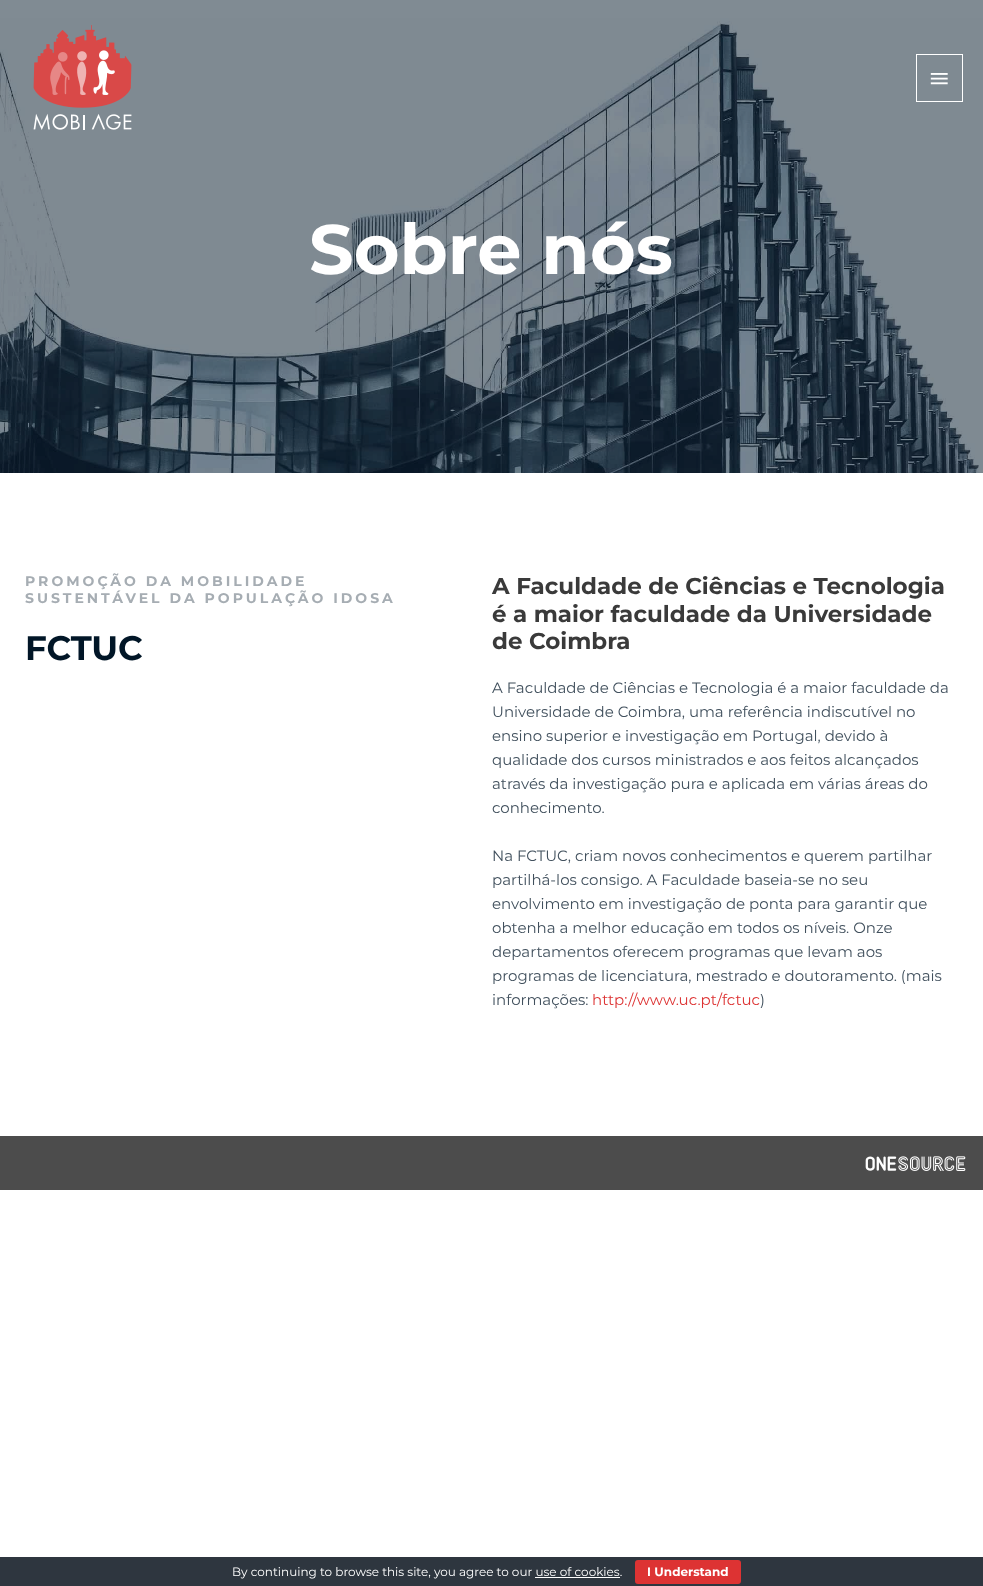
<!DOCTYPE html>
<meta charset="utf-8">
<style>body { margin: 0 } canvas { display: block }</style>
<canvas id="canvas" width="983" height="1586"></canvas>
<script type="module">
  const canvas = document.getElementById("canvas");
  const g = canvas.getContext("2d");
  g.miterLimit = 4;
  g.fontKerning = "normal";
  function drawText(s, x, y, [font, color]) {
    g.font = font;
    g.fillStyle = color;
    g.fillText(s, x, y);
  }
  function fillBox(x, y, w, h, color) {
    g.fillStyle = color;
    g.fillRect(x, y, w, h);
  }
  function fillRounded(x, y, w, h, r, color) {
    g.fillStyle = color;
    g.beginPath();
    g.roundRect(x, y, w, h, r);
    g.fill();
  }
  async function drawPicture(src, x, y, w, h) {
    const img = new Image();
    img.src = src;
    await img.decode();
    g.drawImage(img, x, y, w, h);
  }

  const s1 = ["bold 70px Montserrat", "#FFFFFF"];
  const s2 = ["bold 14px Montserrat", "#A6ADB3"];
  const s3 = ["bold 34px Montserrat", "#011627"];
  const s4 = ["bold 23px Montserrat", "#3A3A3A"];
  const s5 = ["15px Montserrat", "#41505D"];
  const s6 = ["15px Montserrat", "#DD3333"];
  const s7 = ["12px Montserrat", "#FFFFFF"];
  const s8 = ["bold 12px Montserrat", "#FFFFFF"];

  fillBox(0, 0, 983, 1586, "#FFFFFF");
  fillBox(0, 0, 983, 18, "#808B93");
  await drawPicture("pic3.png", 0, 18, 983, 455);
  await drawPicture("pic1.png", 33, 25, 99, 105);
  g.strokeStyle = "#FFFFFF";
  g.strokeRect(916.5, 54.5, 46, 47);
  await drawPicture("pic2.png", 930, 73, 18, 12);
  drawText("Sobre nós", 309, 274, s1);
  g.letterSpacing = "3px";
  drawText("PROMOÇÃO DA MOBILIDADE", 25, 586, s2);
  drawText("SUSTENTÁVEL DA POPULAÇÃO IDOSA", 25, 603, s2);
  g.letterSpacing = "0px";
  drawText("FCTUC", 25, 660, s3);
  drawText("A Faculdade de Ciências e Tecnologia", 492, 594, s4);
  drawText("é a maior faculdade da Universidade", 492, 622, s4);
  drawText("de Coimbra", 492, 649, s4);
  drawText("A Faculdade de Ciências e Tecnologia é a maior faculdade da", 492, 693, s5);
  drawText("Universidade de Coimbra, uma referência indiscutível no", 492, 717, s5);
  drawText("ensino superior e investigação em Portugal, devido à", 492, 741, s5);
  drawText("qualidade dos cursos ministrados e aos feitos alcançados", 492, 765, s5);
  drawText("através da investigação pura e aplicada em várias áreas do", 492, 789, s5);
  drawText("conhecimento.", 492, 813, s5);
  drawText("Na FCTUC, criam novos conhecimentos e querem partilhar", 492, 861, s5);
  drawText("partilhá-los consigo. A Faculdade baseia-se no seu", 492, 885, s5);
  drawText("envolvimento em investigação de ponta para garantir que", 492, 909, s5);
  drawText("obtenha a melhor educação em todos os níveis. Onze", 492, 933, s5);
  drawText("departamentos oferecem programas que levam aos", 492, 957, s5);
  drawText("programas de licenciatura, mestrado e doutoramento. (mais", 492, 981, s5);
  drawText("informações:", 492, 1005, s5);
  drawText("http://www.uc.pt/fctuc", 592, 1005, s6);
  drawText(")", 760, 1005, s5);
  fillBox(0, 1136, 983, 54, "#4C4C4C");
  await drawPicture("pic4.png", 865, 1156, 101, 15);
  fillBox(0, 1557, 983, 29, "#2E363F");
  drawText("By continuing to browse this site, you agree to our use of cookies.", 232, 1576, s7);
  fillRounded(635, 1560, 106, 24, 3, "#DD3333");
  drawText("I Understand", 647, 1576, s8);
  fillBox(535, 1577, 85, 1, "#FFFFFF");
</script>
